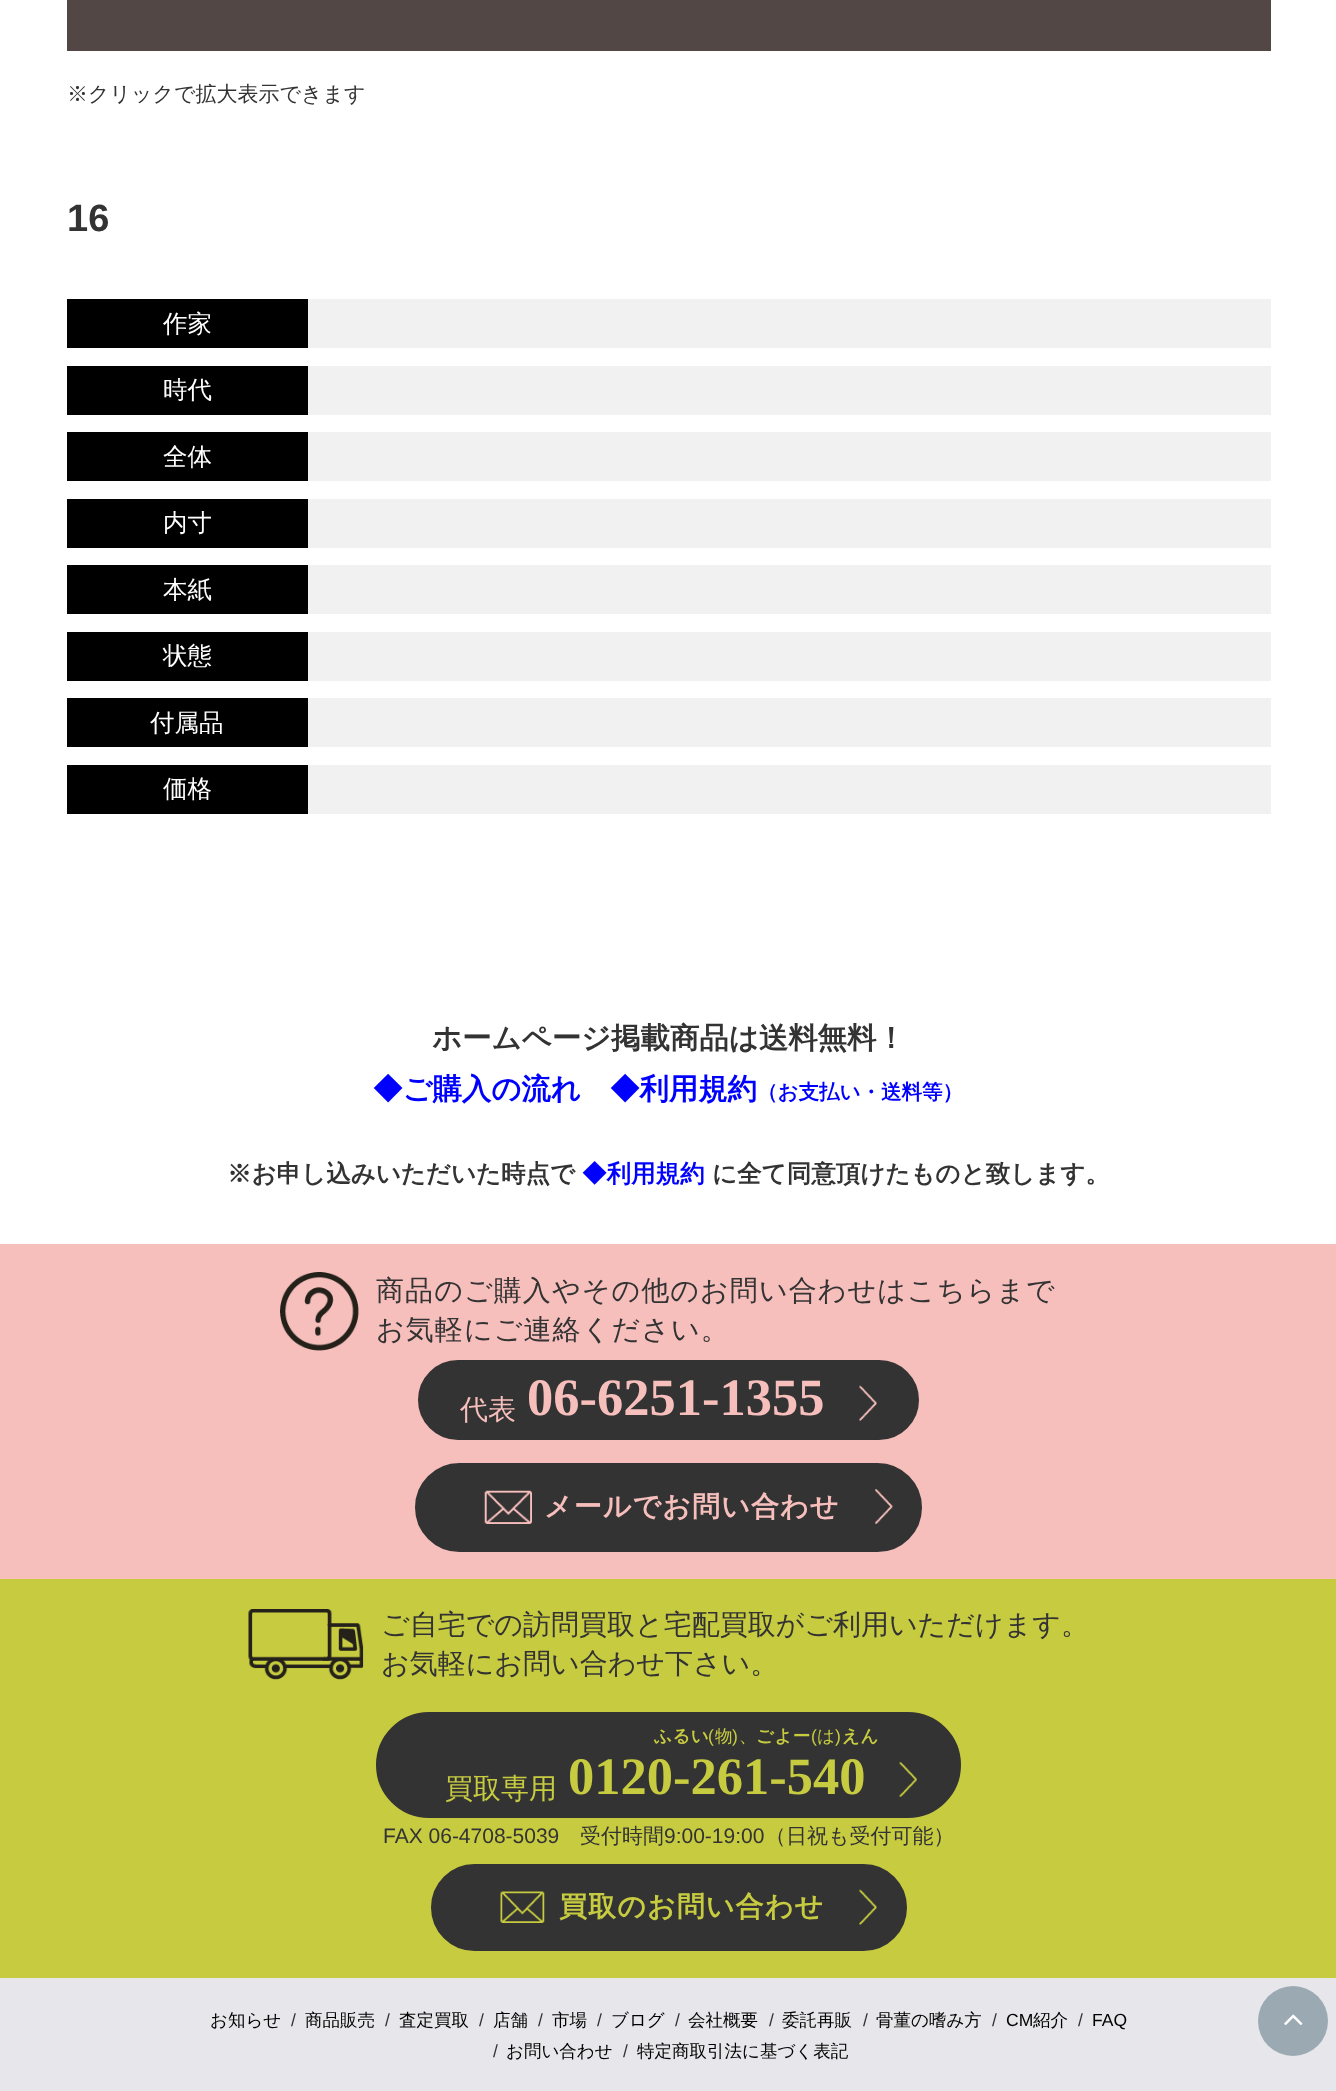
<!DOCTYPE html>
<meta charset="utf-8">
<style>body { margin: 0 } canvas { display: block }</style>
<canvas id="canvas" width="1336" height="2091"></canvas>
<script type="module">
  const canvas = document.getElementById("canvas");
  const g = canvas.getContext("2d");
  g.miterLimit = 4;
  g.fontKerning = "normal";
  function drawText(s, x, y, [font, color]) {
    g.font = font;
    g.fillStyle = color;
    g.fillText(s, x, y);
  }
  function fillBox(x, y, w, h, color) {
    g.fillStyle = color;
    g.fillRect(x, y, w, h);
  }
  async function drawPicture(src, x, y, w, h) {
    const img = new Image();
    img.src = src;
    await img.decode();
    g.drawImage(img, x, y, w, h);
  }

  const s1 = ["500 21px WenQuanYi Zen Hei", "#333333"];
  const s2 = ["bold 38px Liberation Sans", "#333333"];
  const s3 = ["500 24.5px WenQuanYi Zen Hei", "#FFFFFF"];
  const s4 = ["bold 29.4px WenQuanYi Zen Hei", "#333333"];
  const s5 = ["bold 29.4px WenQuanYi Zen Hei", "#0000FF"];
  const s6 = ["bold 20.5px WenQuanYi Zen Hei", "#0000FF"];
  const s7 = ["bold 24.5px WenQuanYi Zen Hei", "#333333"];
  const s8 = ["bold 24.5px WenQuanYi Zen Hei", "#0000FF"];
  const s9 = ["500 28px WenQuanYi Zen Hei", "#333333"];
  const s10 = ["500 28px WenQuanYi Zen Hei", "#F6BFBC"];
  const s11 = ["bold 52.5px Liberation Serif", "#F6BFBC"];
  const s12 = ["bold 28px WenQuanYi Zen Hei", "#F6BFBC"];
  const s13 = ["bold 17.5px WenQuanYi Zen Hei", "#C7CB40"];
  const s14 = ["17.5px Liberation Sans", "#C7CB40"];
  const s15 = ["500 17.5px WenQuanYi Zen Hei", "#C7CB40"];
  const s16 = ["500 28px WenQuanYi Zen Hei", "#C7CB40"];
  const s17 = ["bold 52.5px Liberation Serif", "#C7CB40"];
  const s18 = ["21px Liberation Sans", "#333333"];
  const s19 = ["bold 28px WenQuanYi Zen Hei", "#C7CB40"];
  const s20 = ["500 17.5px WenQuanYi Zen Hei", "#000000"];
  const s21 = ["17.5px Liberation Sans", "#333333"];
  const s22 = ["17.5px Liberation Sans", "#000000"];

  fillBox(0, 0, 1336, 2091, "#FFFFFF");
  fillBox(67, 0, 1204, 51, "#534745");
  drawText("※クリックで拡大表示できます", 67, 101, s1);
  drawText("16", 67, 231, s2);
  fillBox(67, 299, 241, 49, "#000000");
  drawText("作家", 163, 332, s3);
  fillBox(308, 299, 963, 49, "#F1F1F1");
  fillBox(67, 366, 241, 49, "#000000");
  drawText("時代", 163, 398, s3);
  fillBox(308, 366, 963, 49, "#F1F1F1");
  fillBox(67, 432, 241, 49, "#000000");
  drawText("全体", 163, 465, s3);
  fillBox(308, 432, 963, 49, "#F1F1F1");
  fillBox(67, 499, 241, 49, "#000000");
  drawText("内寸", 163, 531, s3);
  fillBox(308, 499, 963, 49, "#F1F1F1");
  fillBox(67, 565, 241, 49, "#000000");
  drawText("本紙", 163, 598, s3);
  fillBox(308, 565, 963, 49, "#F1F1F1");
  fillBox(67, 632, 241, 49, "#000000");
  drawText("状態", 163, 664, s3);
  fillBox(308, 632, 963, 49, "#F1F1F1");
  fillBox(67, 698, 241, 49, "#000000");
  drawText("付属品", 150, 731, s3);
  fillBox(308, 698, 963, 49, "#F1F1F1");
  fillBox(67, 765, 241, 49, "#000000");
  drawText("価格", 163, 797, s3);
  fillBox(308, 765, 963, 49, "#F1F1F1");
  drawText("ホームページ掲載商品は送料無料！", 432, 1048, s4);
  drawText("◆ご購入の流れ", 373, 1099, s5);
  drawText("◆利用規約", 610, 1099, s5);
  drawText("（お支払い・送料等）", 757, 1099, s6);
  drawText("※お申し込みいただいた時点で", 227, 1182, s7);
  drawText("◆利用規約", 582, 1182, s8);
  drawText("に全て同意頂けたものと致します。", 712, 1182, s7);
  fillBox(0, 1244, 1336, 335, "#F6BFBC");
  await drawPicture("pic1.png", 280, 1272, 79, 79);
  g.letterSpacing = "1.1px";
  drawText("商品のご購入やその他のお問い合わせはこちらまで", 376, 1300, s9);
  drawText("お気軽にご連絡ください。", 376, 1339, s9);
  g.beginPath();
  g.roundRect(420, 1362, 497, 76, 38);
  g.fill();
  g.strokeStyle = "#333333";
  g.lineWidth = 4;
  g.stroke();
  g.letterSpacing = "0px";
  drawText("代表", 460, 1419, s10);
  drawText("06-6251-1355", 527, 1415, s11);
  await drawPicture("pic2.png", 859, 1385, 18, 36);
  g.fillStyle = "#333333";
  g.beginPath();
  g.roundRect(417, 1465, 503, 85, 42.5);
  g.fill();
  g.stroke();
  await drawPicture("pic3.png", 484, 1490, 48, 34);
  g.letterSpacing = "1.1px";
  drawText("メールでお問い合わせ", 544, 1516, s12);
  await drawPicture("pic4.png", 875, 1489, 18, 35);
  fillBox(0, 1579, 1336, 399, "#C7CB40");
  await drawPicture("pic5.png", 248, 1609, 116, 71);
  g.letterSpacing = "0px";
  drawText("ご自宅での訪問買取と宅配買取がご利用いただけます。", 381, 1634, s9);
  drawText("お気軽にお問い合わせ下さい。", 381, 1673, s9);
  g.beginPath();
  g.roundRect(378, 1714, 581, 102, 51);
  g.fill();
  g.stroke();
  g.letterSpacing = "0.5px";
  drawText("ふるい", 654, 1742, s13);
  drawText("(", 708, 1742, s14);
  drawText("物", 715, 1742, s15);
  drawText(")", 732, 1742, s14);
  drawText("、", 739, 1742, s15);
  drawText("ごよー", 756, 1742, s13);
  drawText("(", 811, 1742, s14);
  drawText("は", 817, 1742, s15);
  drawText(")", 835, 1742, s14);
  drawText("えん", 842, 1742, s13);
  g.letterSpacing = "0px";
  drawText("買取専用", 445, 1798, s16);
  drawText("0120-261-540", 568, 1794, s17);
  await drawPicture("pic6.png", 899, 1762, 18, 35);
  drawText("FAX 06-4708-5039", 383, 1843, s18);
  drawText("受付時間", 580, 1843, s1);
  drawText("9:00-19:00", 664, 1843, s18);
  drawText("（日祝も受付可能）", 765, 1843, s1);
  g.beginPath();
  g.roundRect(433, 1866, 472, 83, 41.5);
  g.fill();
  g.stroke();
  await drawPicture("pic7.png", 500, 1891, 45, 32);
  g.letterSpacing = "1.1px";
  drawText("買取のお問い合わせ", 559, 1916, s19);
  await drawPicture("pic8.png", 859, 1889, 18, 36);
  fillBox(0, 1978, 1336, 113, "#E7E7EB");
  g.fillStyle = "#9BAAB2";
  g.beginPath();
  g.arc(1293, 2021, 35, 0, Math.PI * 2);
  g.fill();
  await drawPicture("pic9.png", 1284, 2014, 19, 11);
  g.letterSpacing = "0px";
  drawText("お知らせ", 210, 2026, s20);
  drawText("/", 291, 2026, s21);
  drawText("商品販売", 305, 2026, s20);
  drawText("/", 385, 2026, s21);
  drawText("査定買取", 399, 2026, s20);
  drawText("/", 479, 2026, s21);
  drawText("店舗", 493, 2026, s20);
  drawText("/", 538, 2026, s21);
  drawText("市場", 552, 2026, s20);
  drawText("/", 597, 2026, s21);
  drawText("ブログ", 611, 2026, s20);
  drawText("/", 675, 2026, s21);
  drawText("会社概要", 688, 2026, s20);
  drawText("/", 769, 2026, s21);
  drawText("委託再販", 782, 2026, s20);
  drawText("/", 863, 2026, s21);
  drawText("骨董の嗜み方", 876, 2026, s20);
  drawText("/", 992, 2026, s21);
  drawText("CM", 1006, 2026, s22);
  drawText("紹介", 1033, 2026, s20);
  drawText("/", 1078, 2026, s21);
  drawText("FAQ", 1092, 2026, s22);
  drawText("/", 493, 2057, s21);
  drawText("お問い合わせ", 506, 2057, s20);
  drawText("/", 623, 2057, s21);
  drawText("特定商取引法に基づく表記", 637, 2057, s20);
</script>
